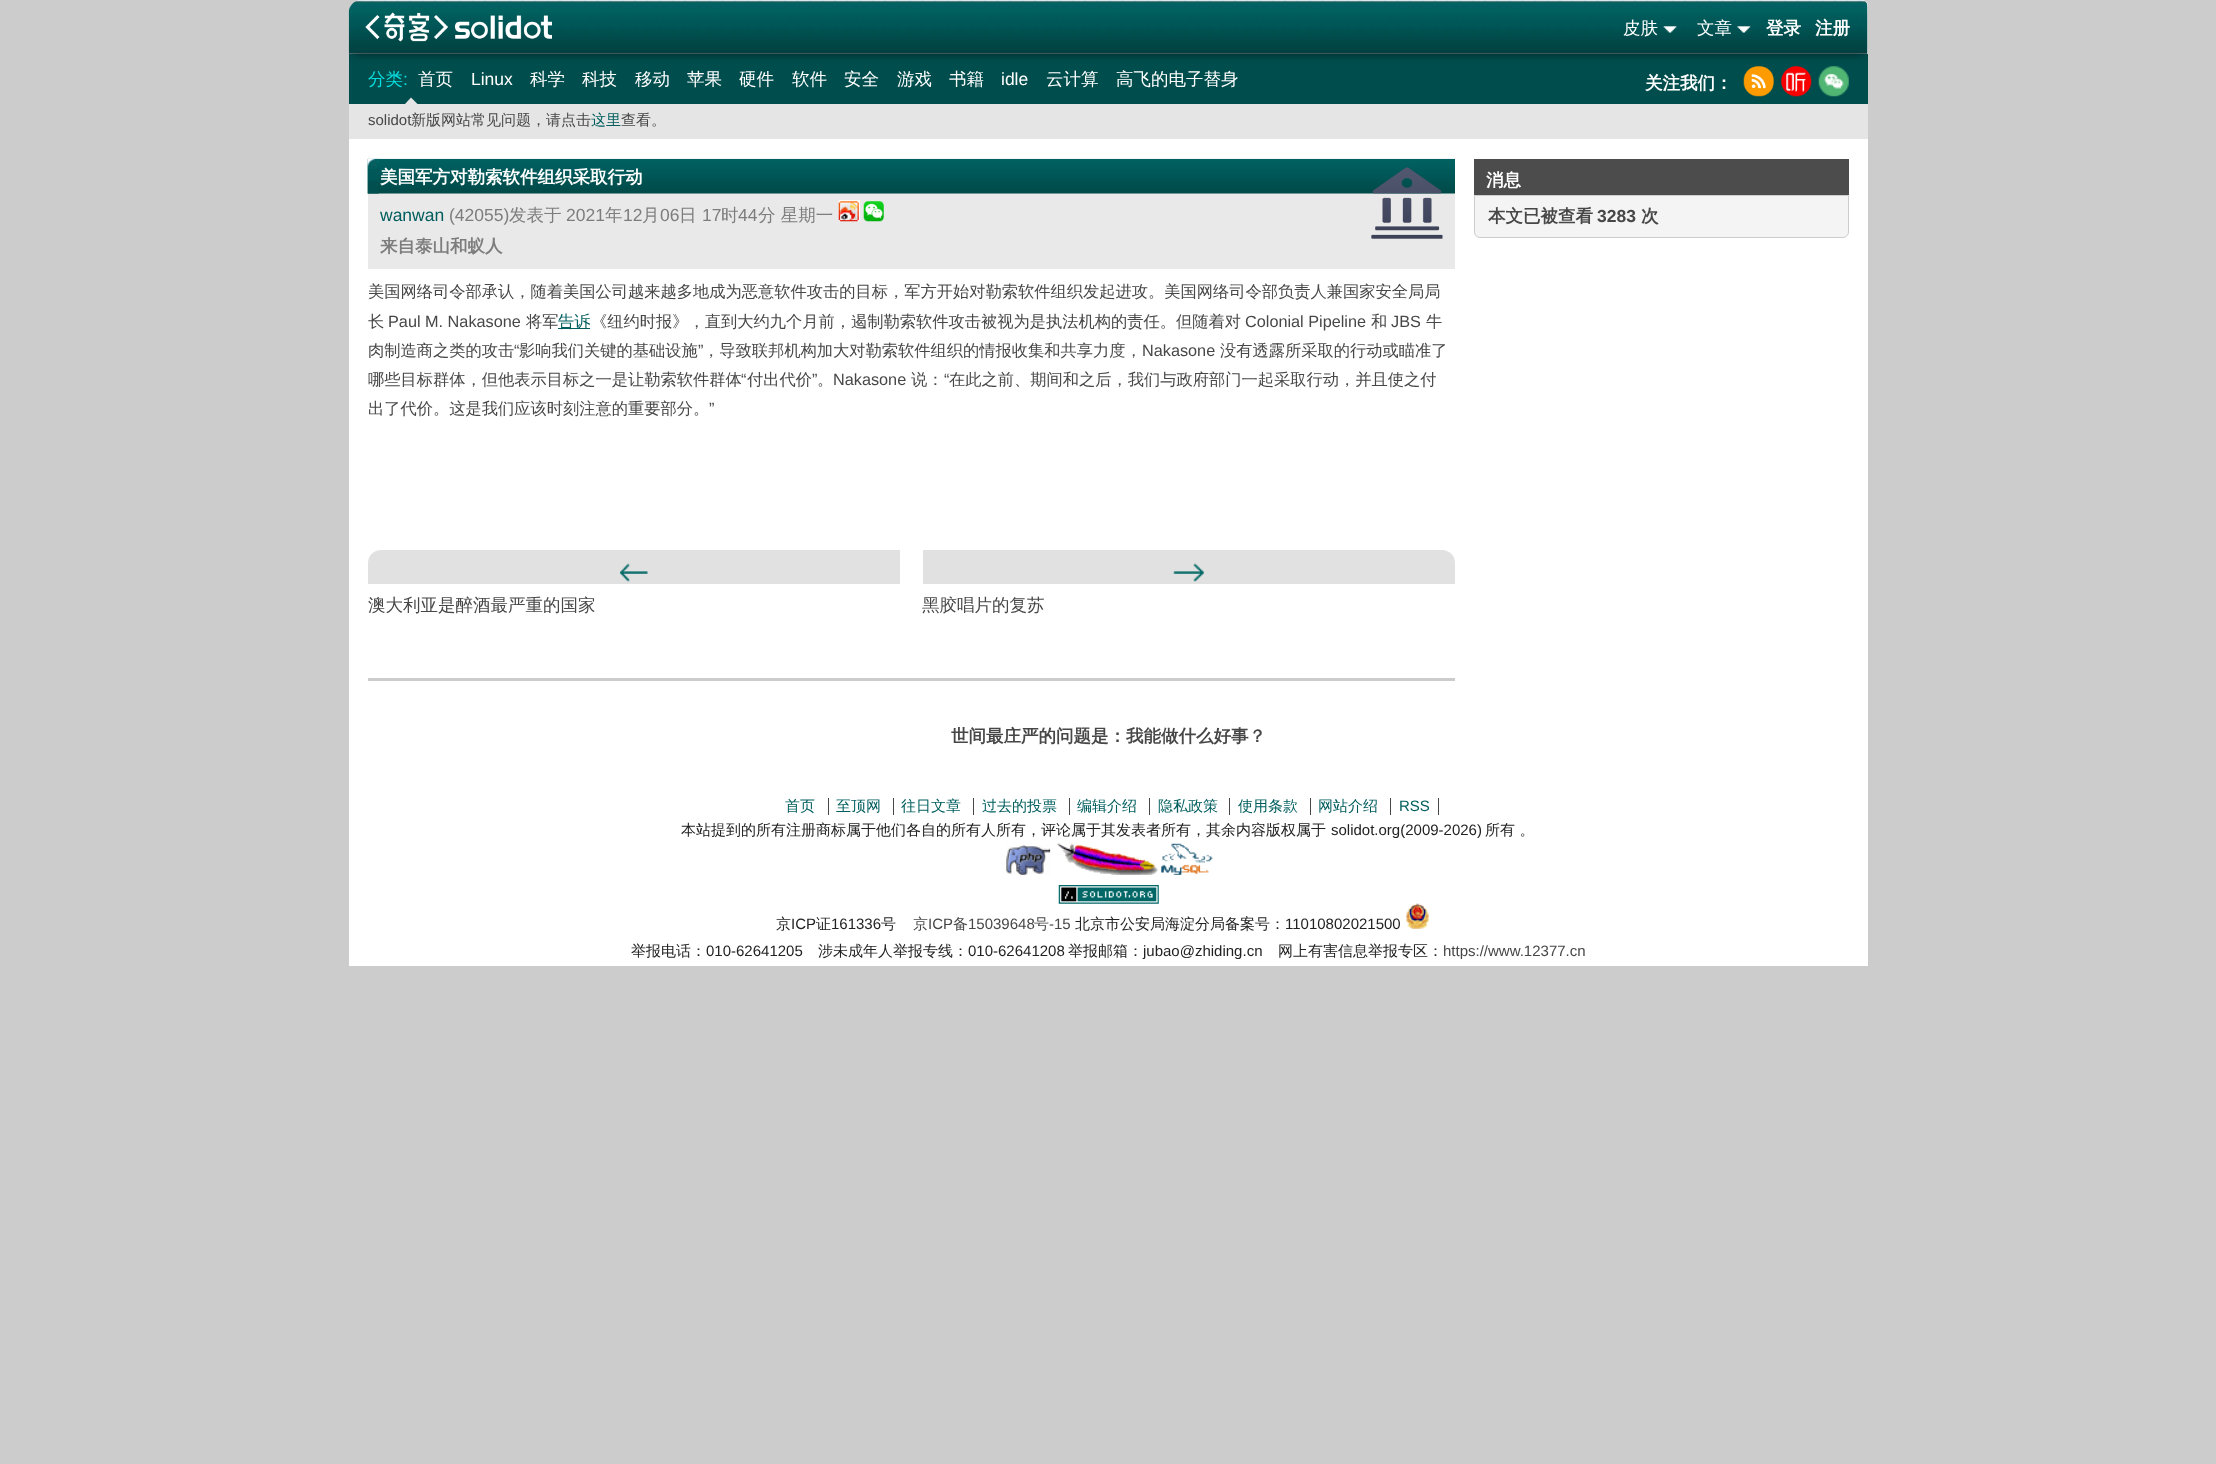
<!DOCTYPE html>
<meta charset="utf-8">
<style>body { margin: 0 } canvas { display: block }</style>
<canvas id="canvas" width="2216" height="1464"></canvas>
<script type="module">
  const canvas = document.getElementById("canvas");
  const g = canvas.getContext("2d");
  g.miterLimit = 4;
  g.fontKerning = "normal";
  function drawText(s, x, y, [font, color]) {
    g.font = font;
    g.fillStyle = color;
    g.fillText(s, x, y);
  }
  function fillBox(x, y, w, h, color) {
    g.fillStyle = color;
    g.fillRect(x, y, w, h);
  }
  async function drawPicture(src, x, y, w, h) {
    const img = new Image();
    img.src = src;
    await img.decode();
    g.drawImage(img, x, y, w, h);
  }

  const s1 = ["500 17.5px WenQuanYi Zen Hei", "#FFFFFF"];
  const s2 = ["bold 17.5px WenQuanYi Zen Hei", "#FFFFFF"];
  const s3 = ["500 17.5px WenQuanYi Zen Hei", "#08DEDE"];
  const s4 = ["17.5px Liberation Sans", "#08DEDE"];
  const s5 = ["17.5px Liberation Sans", "#FFFFFF"];
  const s6 = ["15px Liberation Sans", "#474747"];
  const s7 = ["500 15px WenQuanYi Zen Hei", "#474747"];
  const s8 = ["500 15px WenQuanYi Zen Hei", "#005D5D"];
  const s9 = ["17.5px Liberation Sans", "#005D5D"];
  const s10 = ["17.5px Liberation Sans", "#7D7D7D"];
  const s11 = ["500 17.5px WenQuanYi Zen Hei", "#7D7D7D"];
  const s12 = ["bold 17.5px WenQuanYi Zen Hei", "#7D7D7D"];
  const s13 = ["500 16.25px WenQuanYi Zen Hei", "#474747"];
  const s14 = ["16.25px Liberation Sans", "#474747"];
  const s15 = ["500 16.25px WenQuanYi Zen Hei", "#005D5D"];
  const s16 = ["500 17.5px WenQuanYi Zen Hei", "#474747"];
  const s17 = ["bold 17.5px WenQuanYi Zen Hei", "#474747"];
  const s18 = ["bold 17.5px Liberation Sans", "#474747"];
  const s19 = ["15px Liberation Sans", "#005D5D"];
  const s20 = ["500 15px WenQuanYi Zen Hei", "#222222"];
  const s21 = ["15px Liberation Sans", "#222222"];

  fillBox(0, 0, 2216, 1464, "#CCCCCC");
  g.fillStyle = "#FFFFFF";
  g.beginPath();
  g.roundRect(349, 0, 1519, 966, [13, 6, 0, 0]);
  g.fill();
  fillBox(349, 54, 1519, 50, "#004D4D");
  await drawPicture("pic5.png", 1743, 66, 31, 31);
  await drawPicture("pic6.png", 1781, 66, 31, 31);
  await drawPicture("pic7.png", 1818, 66, 31, 31);
  g.save();
  g.beginPath();
  g.moveTo(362, 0);
  g.lineTo(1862, 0);
  g.bezierCurveTo(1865.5, 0, 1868, 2.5, 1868, 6);
  g.lineTo(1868, 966);
  g.lineTo(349, 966);
  g.lineTo(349, 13);
  g.bezierCurveTo(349, 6, 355, 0, 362, 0);
  g.closePath();
  g.clip();
  g.fillStyle = "rgba(0, 0, 0, 0.5)";
  g.filter = "blur(4px)";
  g.beginPath();
  g.rect(353, 8, 1511, 46);
  g.fill();
  g.filter = "none";
  g.restore();
  await drawPicture("pic2.png", 348, 0, 1520, 54);
  await drawPicture("pic1.png", 365, 12, 187, 30);
  await drawPicture("pic3.png", 1663, 26, 14, 7);
  drawText("皮肤", 1623, 34, s1);
  await drawPicture("pic4.png", 1737, 26, 14, 7);
  drawText("文章", 1697, 34, s1);
  drawText("登录", 1766, 34, s2);
  drawText("注册", 1815, 34, s2);
  drawText("分类", 368, 85, s3);
  drawText(":", 403, 85, s4);
  drawText("首页", 418, 85, s1);
  drawText("Linux", 471, 85, s5);
  drawText("科学", 530, 85, s1);
  drawText("科技", 582, 85, s1);
  drawText("移动", 635, 85, s1);
  drawText("苹果", 687, 85, s1);
  drawText("硬件", 739, 85, s1);
  drawText("软件", 792, 85, s1);
  drawText("安全", 844, 85, s1);
  drawText("游戏", 897, 85, s1);
  drawText("书籍", 949, 85, s1);
  drawText("idle", 1001, 85, s5);
  drawText("云计算", 1046, 85, s1);
  drawText("高飞的电子替身", 1116, 85, s1);
  drawText("关注我们：", 1645, 89, s2);
  fillBox(349, 104, 1519, 35, "#E5E5E5");
  g.beginPath();
  g.moveTo(417.5, 104);
  g.lineTo(405, 104);
  g.lineTo(411, 97.5);
  g.closePath();
  g.fill();
  drawText("solidot", 368, 125, s6);
  drawText("新版网站常见问题，请点击", 411, 125, s7);
  drawText("这里", 591, 125, s8);
  drawText("查看。", 621, 125, s7);
  fillBox(368, 678, 1087, 3, "#CCCCCC");
  await drawPicture("pic9.png", 367, 158, 1088, 36);
  await drawPicture("pic8.png", 367, 158, 12, 36);
  drawText("美国军方对勒索软件组织采取行动", 380, 183, s2);
  fillBox(368, 194, 1087, 75, "#E9E9E9");
  drawText("wanwan", 380, 221, s9);
  drawText("(42055)", 449, 221, s10);
  drawText("发表于", 509, 221, s11);
  drawText("2021", 566, 221, s10);
  drawText("年", 605, 221, s11);
  drawText("12", 623, 221, s10);
  drawText("月", 642, 221, s11);
  drawText("06", 660, 221, s10);
  drawText("日", 679, 221, s11);
  drawText("17", 702, 221, s10);
  drawText("时", 721, 221, s11);
  drawText("44", 738, 221, s10);
  drawText("分 星期一", 758, 221, s11);
  await drawPicture("pic10.png", 838, 200, 22, 22);
  await drawPicture("pic11.png", 863, 201, 21, 21);
  await drawPicture("pic12.png", 1371, 167, 72, 72);
  drawText("来自泰山和蚁人", 380, 252, s12);
  drawText("美国网络司令部承认，随着美国公司越来越多地成为恶意软件攻击的目标，军方开始对勒索软件组织发起进攻。美国网络司令部负责人兼国家安全局局", 368, 297, s13);
  drawText("长", 368, 327, s13);
  drawText("Paul M. Nakasone", 388, 327, s14);
  drawText("将军", 526, 327, s13);
  fillBox(558, 328, 32, 1, "#005D5D");
  drawText("告诉", 558, 327, s15);
  drawText("《纽约时报》，直到大约九个月前，遏制勒索软件攻击被视为是执法机构的责任。但随着对", 591, 327, s13);
  drawText("Colonial Pipeline", 1245, 327, s14);
  drawText("和", 1371, 327, s13);
  drawText("JBS", 1391, 327, s14);
  drawText("牛", 1426, 327, s13);
  drawText("肉制造商之类的攻击", 368, 356, s13);
  drawText("“", 514, 356, s14);
  drawText("影响我们关键的基础设施", 519, 356, s13);
  drawText("”", 698, 356, s14);
  drawText("，导致联邦机构加大对勒索软件组织的情报收集和共享力度，", 703, 356, s13);
  drawText("Nakasone", 1142, 356, s14);
  drawText("没有透露所采取的行动或瞄准了", 1220, 356, s13);
  drawText("哪些目标群体，但他表示目标之一是让勒索软件群体", 368, 385, s13);
  drawText("“", 741, 385, s14);
  drawText("付出代价", 747, 385, s13);
  drawText("”", 812, 385, s14);
  drawText("Nakasone", 833, 385, s14);
  drawText("说：", 911, 385, s13);
  drawText("“", 944, 385, s14);
  drawText("在此之前、期间和之后，我们与政府部门一起采取行动，并且使之付", 949, 385, s13);
  drawText("。", 817, 385, s13);
  drawText("出了代价。这是我们应该时刻注意的重要部分。", 368, 414, s13);
  drawText("”", 709, 414, s14);
  g.fillStyle = "#E1E1E1";
  g.beginPath();
  g.roundRect(368, 550, 532, 34, [13, 0, 0, 0]);
  g.fill();
  await drawPicture("pic13.png", 620, 563, 28, 19);
  drawText("澳大利亚是醉酒最严重的国家", 368, 611, s16);
  g.fillStyle = "#E1E1E1";
  g.beginPath();
  g.roundRect(923, 550, 532, 34, [0, 13, 0, 0]);
  g.fill();
  await drawPicture("pic14.png", 1173, 563, 31, 19);
  drawText("黑胶唱片的复苏", 922, 611, s16);
  fillBox(1474, 159, 375, 36, "#4C4C4C");
  drawText("消息", 1486, 186, s2);
  g.fillStyle = "#F4F4F4";
  g.beginPath();
  g.roundRect(1474.5, 195.5, 374, 42, [0, 0, 5.5, 5.5]);
  g.fill();
  g.strokeStyle = "#CCCCCC";
  g.stroke();
  drawText("本文已被查看", 1488, 222, s17);
  drawText("3283", 1597, 222, s18);
  drawText("次", 1641, 222, s17);
  drawText("世间最庄严的问题是：我能做什么好事？", 951, 742, s17);
  drawText("首页", 785, 811, s8);
  fillBox(828, 798, 1, 17, "#474747");
  drawText("至顶网", 836, 811, s8);
  fillBox(893, 798, 1, 17, "#474747");
  drawText("往日文章", 901, 811, s8);
  fillBox(973, 798, 1, 17, "#474747");
  drawText("过去的投票", 982, 811, s8);
  fillBox(1069, 798, 1, 17, "#474747");
  drawText("编辑介绍", 1077, 811, s8);
  fillBox(1149, 798, 1, 17, "#474747");
  drawText("隐私政策", 1158, 811, s8);
  fillBox(1229, 798, 1, 17, "#474747");
  drawText("使用条款", 1238, 811, s8);
  fillBox(1310, 798, 1, 17, "#474747");
  drawText("网站介绍", 1318, 811, s8);
  fillBox(1390, 798, 1, 17, "#474747");
  drawText("RSS", 1399, 811, s19);
  fillBox(1438, 798, 1, 17, "#474747");
  drawText("本站提到的所有注册商标属于他们各自的所有人所有，评论属于其发表者所有，其余内容版权属于", 681, 835, s20);
  drawText("solidot.org(2009-2026)", 1331, 835, s21);
  drawText("所有 。", 1485, 835, s20);
  await drawPicture("pic15.png", 1006, 845, 45, 30);
  await drawPicture("pic16.png", 1057, 843, 101, 32);
  await drawPicture("pic17.png", 1161, 843, 52, 32);
  await drawPicture("pic18.png", 1058, 885, 101, 19);
  drawText("京", 776, 929, s20);
  drawText("ICP", 791, 929, s21);
  drawText("证", 816, 929, s20);
  drawText("161336", 831, 929, s21);
  drawText("号", 881, 929, s20);
  drawText("京", 913, 929, s7);
  drawText("ICP", 928, 929, s6);
  drawText("备", 953, 929, s7);
  drawText("15039648", 968, 929, s6);
  drawText("号", 1034, 929, s7);
  drawText("-15", 1049, 929, s6);
  drawText("北京市公安局海淀分局备案号：", 1075, 929, s20);
  drawText("11010802021500", 1285, 929, s21);
  await drawPicture("pic19.png", 1406, 903, 23, 26);
  drawText("举报电话：", 631, 956, s20);
  drawText("010-62641205", 706, 956, s21);
  drawText("涉未成年人举报专线：", 818, 956, s20);
  drawText("010-62641208", 968, 956, s21);
  drawText("举报邮箱：", 1068, 956, s20);
  drawText("jubao@zhiding.cn", 1143, 956, s21);
  drawText("网上有害信息举报专区：", 1278, 956, s20);
  drawText("https://www.12377.cn", 1443, 956, s6);
</script>
